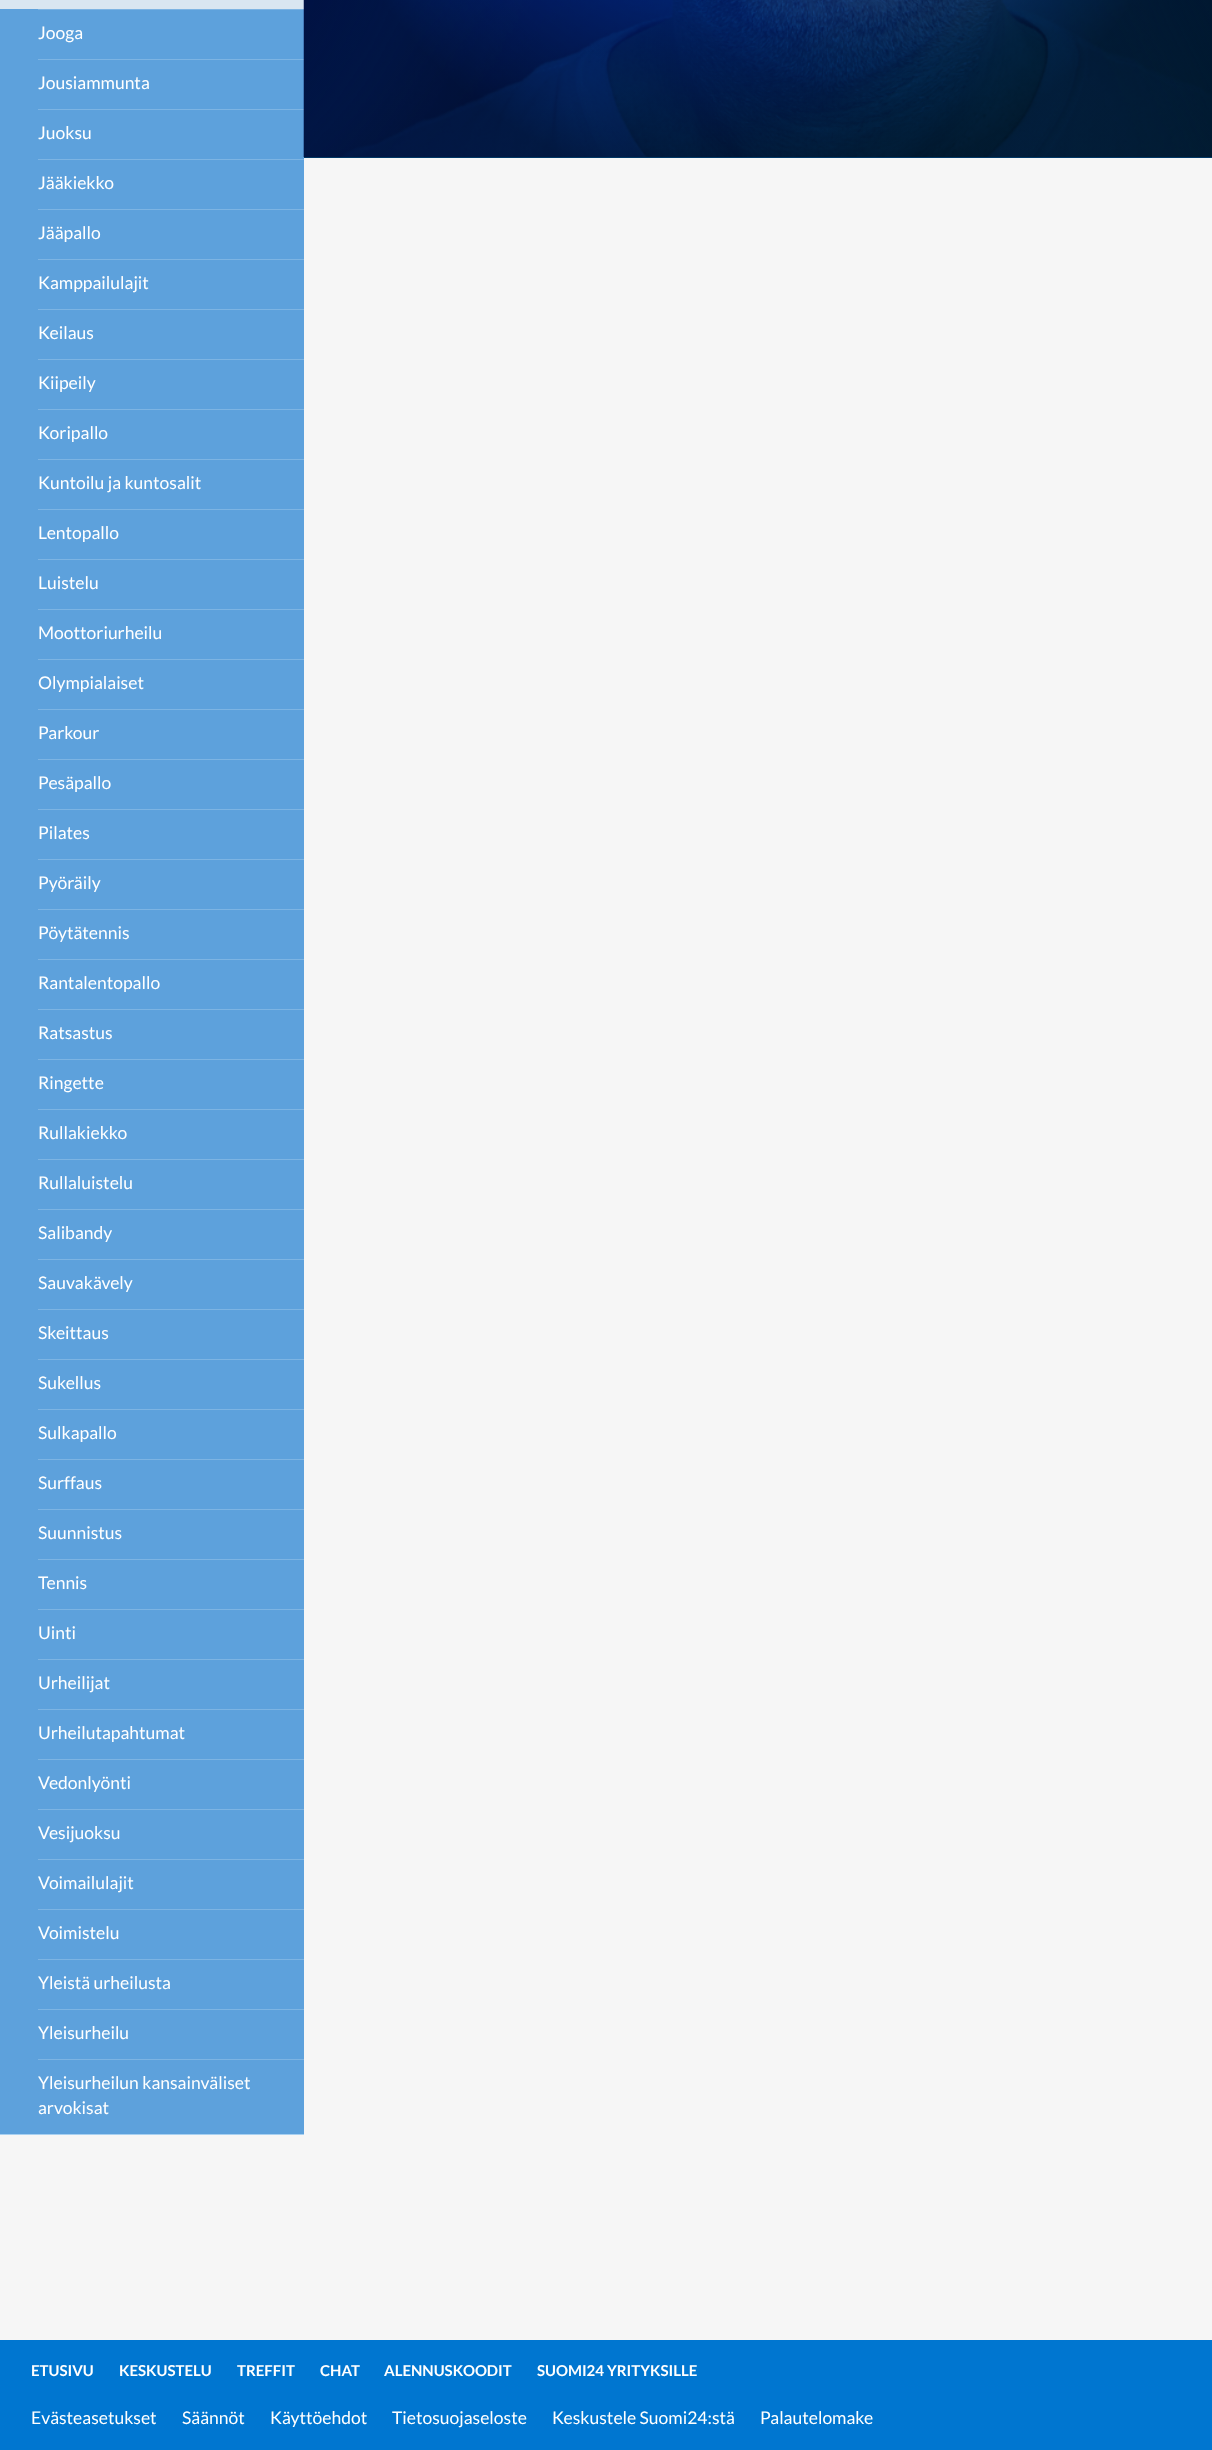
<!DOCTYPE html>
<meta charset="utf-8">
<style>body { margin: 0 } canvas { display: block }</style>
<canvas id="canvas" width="1212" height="2450"></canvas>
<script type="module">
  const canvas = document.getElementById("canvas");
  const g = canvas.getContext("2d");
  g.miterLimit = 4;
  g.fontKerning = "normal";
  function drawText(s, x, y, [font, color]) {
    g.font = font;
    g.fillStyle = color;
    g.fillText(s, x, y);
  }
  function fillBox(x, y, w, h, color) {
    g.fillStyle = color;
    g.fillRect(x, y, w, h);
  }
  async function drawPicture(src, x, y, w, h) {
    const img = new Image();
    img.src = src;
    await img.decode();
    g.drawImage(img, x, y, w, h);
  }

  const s1 = ["17.5px Lato", "#FFFFFF"];
  const s2 = ["bold 15px Lato", "#FFFFFF"];

  fillBox(0, 0, 1212, 2450, "#F6F6F6");
  fillBox(0, 2134, 304, 1, "#A8D0F0");
  fillBox(0, 0, 304, 9, "#D9E6F1");
  fillBox(0, 9, 304, 2125, "#5DA1DC");
  fillBox(38, 9, 266, 1, "#7DB4E3");
  drawText("Jooga", 38, 39, s1);
  fillBox(38, 59, 266, 1, "#7DB4E3");
  drawText("Jousiammunta", 38, 89, s1);
  fillBox(38, 109, 266, 1, "#7DB4E3");
  drawText("Juoksu", 38, 139, s1);
  fillBox(38, 159, 266, 1, "#7DB4E3");
  drawText("Jääkiekko", 38, 189, s1);
  fillBox(38, 209, 266, 1, "#7DB4E3");
  drawText("Jääpallo", 38, 239, s1);
  fillBox(38, 259, 266, 1, "#7DB4E3");
  drawText("Kamppailulajit", 38, 289, s1);
  fillBox(38, 309, 266, 1, "#7DB4E3");
  drawText("Keilaus", 38, 339, s1);
  fillBox(38, 359, 266, 1, "#7DB4E3");
  drawText("Kiipeily", 38, 389, s1);
  fillBox(38, 409, 266, 1, "#7DB4E3");
  drawText("Koripallo", 38, 439, s1);
  fillBox(38, 459, 266, 1, "#7DB4E3");
  drawText("Kuntoilu ja kuntosalit", 38, 489, s1);
  fillBox(38, 509, 266, 1, "#7DB4E3");
  drawText("Lentopallo", 38, 539, s1);
  fillBox(38, 559, 266, 1, "#7DB4E3");
  drawText("Luistelu", 38, 589, s1);
  fillBox(38, 609, 266, 1, "#7DB4E3");
  drawText("Moottoriurheilu", 38, 639, s1);
  fillBox(38, 659, 266, 1, "#7DB4E3");
  drawText("Olympialaiset", 38, 689, s1);
  fillBox(38, 709, 266, 1, "#7DB4E3");
  drawText("Parkour", 38, 739, s1);
  fillBox(38, 759, 266, 1, "#7DB4E3");
  drawText("Pesäpallo", 38, 789, s1);
  fillBox(38, 809, 266, 1, "#7DB4E3");
  drawText("Pilates", 38, 839, s1);
  fillBox(38, 859, 266, 1, "#7DB4E3");
  drawText("Pyöräily", 38, 889, s1);
  fillBox(38, 909, 266, 1, "#7DB4E3");
  drawText("Pöytätennis", 38, 939, s1);
  fillBox(38, 959, 266, 1, "#7DB4E3");
  drawText("Rantalentopallo", 38, 989, s1);
  fillBox(38, 1009, 266, 1, "#7DB4E3");
  drawText("Ratsastus", 38, 1039, s1);
  fillBox(38, 1059, 266, 1, "#7DB4E3");
  drawText("Ringette", 38, 1089, s1);
  fillBox(38, 1109, 266, 1, "#7DB4E3");
  drawText("Rullakiekko", 38, 1139, s1);
  fillBox(38, 1159, 266, 1, "#7DB4E3");
  drawText("Rullaluistelu", 38, 1189, s1);
  fillBox(38, 1209, 266, 1, "#7DB4E3");
  drawText("Salibandy", 38, 1239, s1);
  fillBox(38, 1259, 266, 1, "#7DB4E3");
  drawText("Sauvakävely", 38, 1289, s1);
  fillBox(38, 1309, 266, 1, "#7DB4E3");
  drawText("Skeittaus", 38, 1339, s1);
  fillBox(38, 1359, 266, 1, "#7DB4E3");
  drawText("Sukellus", 38, 1389, s1);
  fillBox(38, 1409, 266, 1, "#7DB4E3");
  drawText("Sulkapallo", 38, 1439, s1);
  fillBox(38, 1459, 266, 1, "#7DB4E3");
  drawText("Surffaus", 38, 1489, s1);
  fillBox(38, 1509, 266, 1, "#7DB4E3");
  drawText("Suunnistus", 38, 1539, s1);
  fillBox(38, 1559, 266, 1, "#7DB4E3");
  drawText("Tennis", 38, 1589, s1);
  fillBox(38, 1609, 266, 1, "#7DB4E3");
  drawText("Uinti", 38, 1639, s1);
  fillBox(38, 1659, 266, 1, "#7DB4E3");
  drawText("Urheilijat", 38, 1689, s1);
  fillBox(38, 1709, 266, 1, "#7DB4E3");
  drawText("Urheilutapahtumat", 38, 1739, s1);
  fillBox(38, 1759, 266, 1, "#7DB4E3");
  drawText("Vedonlyönti", 38, 1789, s1);
  fillBox(38, 1809, 266, 1, "#7DB4E3");
  drawText("Vesijuoksu", 38, 1839, s1);
  fillBox(38, 1859, 266, 1, "#7DB4E3");
  drawText("Voimailulajit", 38, 1889, s1);
  fillBox(38, 1909, 266, 1, "#7DB4E3");
  drawText("Voimistelu", 38, 1939, s1);
  fillBox(38, 1959, 266, 1, "#7DB4E3");
  drawText("Yleistä urheilusta", 38, 1989, s1);
  fillBox(38, 2009, 266, 1, "#7DB4E3");
  drawText("Yleisurheilu", 38, 2039, s1);
  fillBox(38, 2059, 266, 1, "#7DB4E3");
  drawText("Yleisurheilun kansainväliset", 38, 2089, s1);
  drawText("arvokisat", 38, 2114, s1);
  fillBox(304, 0, 908, 158, "#003765");
  await drawPicture("pic1.png", 303, 0, 909, 157);
  fillBox(0, 2340, 1212, 110, "#0076D0");
  drawText("ETUSIVU", 31, 2376, s2);
  drawText("KESKUSTELU", 119, 2376, s2);
  drawText("TREFFIT", 237, 2376, s2);
  drawText("CHAT", 320, 2376, s2);
  drawText("ALENNUSKOODIT", 384, 2376, s2);
  drawText("SUOMI24 YRITYKSILLE", 537, 2376, s2);
  drawText("Evästeasetukset", 31, 2424, s1);
  drawText("Säännöt", 182, 2424, s1);
  drawText("Käyttöehdot", 270, 2424, s1);
  drawText("Tietosuojaseloste", 392, 2424, s1);
  drawText("Keskustele Suomi24:stä", 552, 2424, s1);
  drawText("Palautelomake", 760, 2424, s1);
</script>
